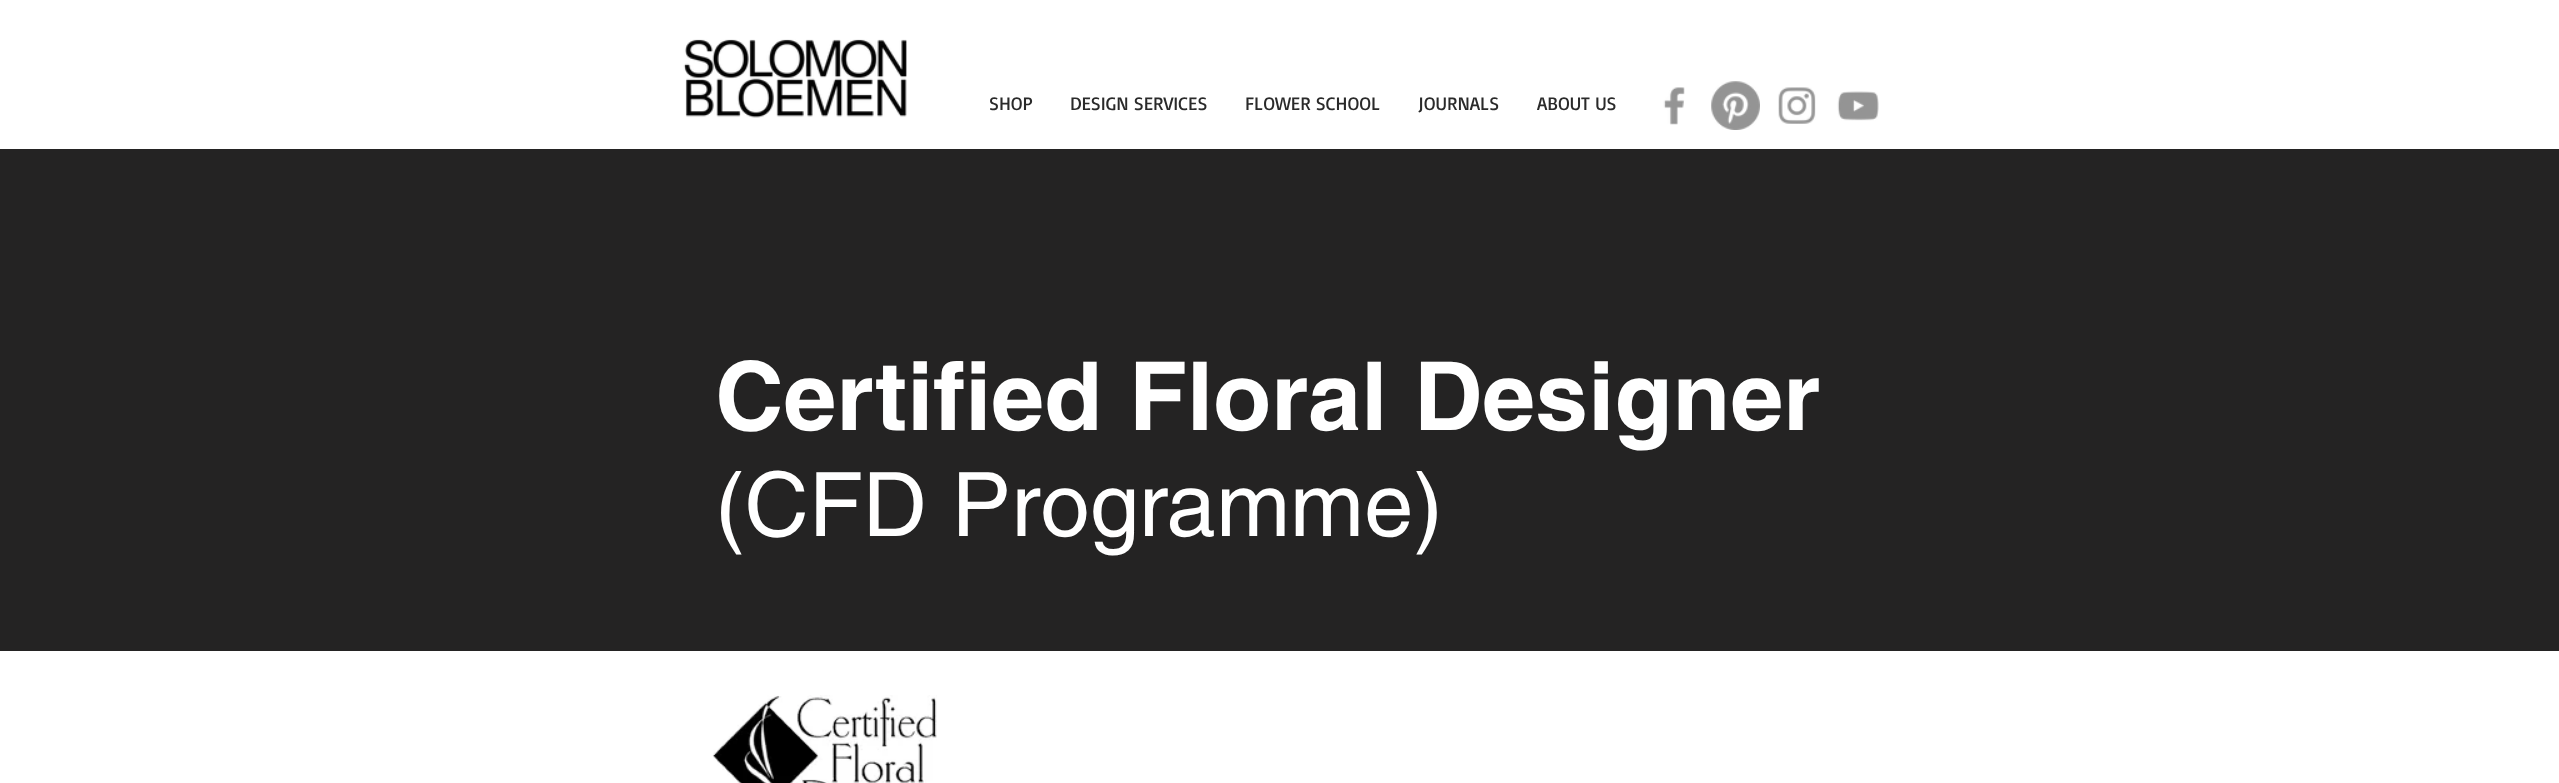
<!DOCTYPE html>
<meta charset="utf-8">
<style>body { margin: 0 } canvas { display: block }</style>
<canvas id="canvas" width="2559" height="783"></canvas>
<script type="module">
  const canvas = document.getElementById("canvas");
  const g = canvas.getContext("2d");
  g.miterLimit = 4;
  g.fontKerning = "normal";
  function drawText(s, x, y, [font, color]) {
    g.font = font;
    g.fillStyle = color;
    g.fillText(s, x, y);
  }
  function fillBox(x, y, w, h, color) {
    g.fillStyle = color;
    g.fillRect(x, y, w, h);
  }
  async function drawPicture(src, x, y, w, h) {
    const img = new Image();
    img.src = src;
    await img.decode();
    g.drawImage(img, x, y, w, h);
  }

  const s1 = ["18.75px Basic", "#2A2A2A"];
  const s2 = ["bold 95px helvetica", "#FFFFFF"];
  const s3 = ["88.75px helvetica", "#FFFFFF"];

  fillBox(0, 0, 2559, 783, "#FFFFFF");
  await drawPicture("pic1.png", 683, 39, 224, 79);
  drawText("SHOP", 989, 110, s1);
  drawText("DESIGN SERVICES", 1070, 110, s1);
  drawText("FLOWER SCHOOL", 1245, 110, s1);
  drawText("JOURNALS", 1418, 110, s1);
  drawText("ABOUT US", 1537, 110, s1);
  await drawPicture("pic2.png", 1663, 87, 22, 38);
  await drawPicture("pic3.png", 1711, 81, 49, 49);
  await drawPicture("pic4.png", 1778, 87, 38, 37);
  await drawPicture("pic5.png", 1837, 91, 42, 30);
  fillBox(0, 149, 2559, 502, "#242323");
  drawText("Certified Floral Designer", 715, 430, s2);
  drawText("(CFD Programme)", 715, 536, s3);
  await drawPicture("pic6.png", 712, 695, 225, 88);
</script>
